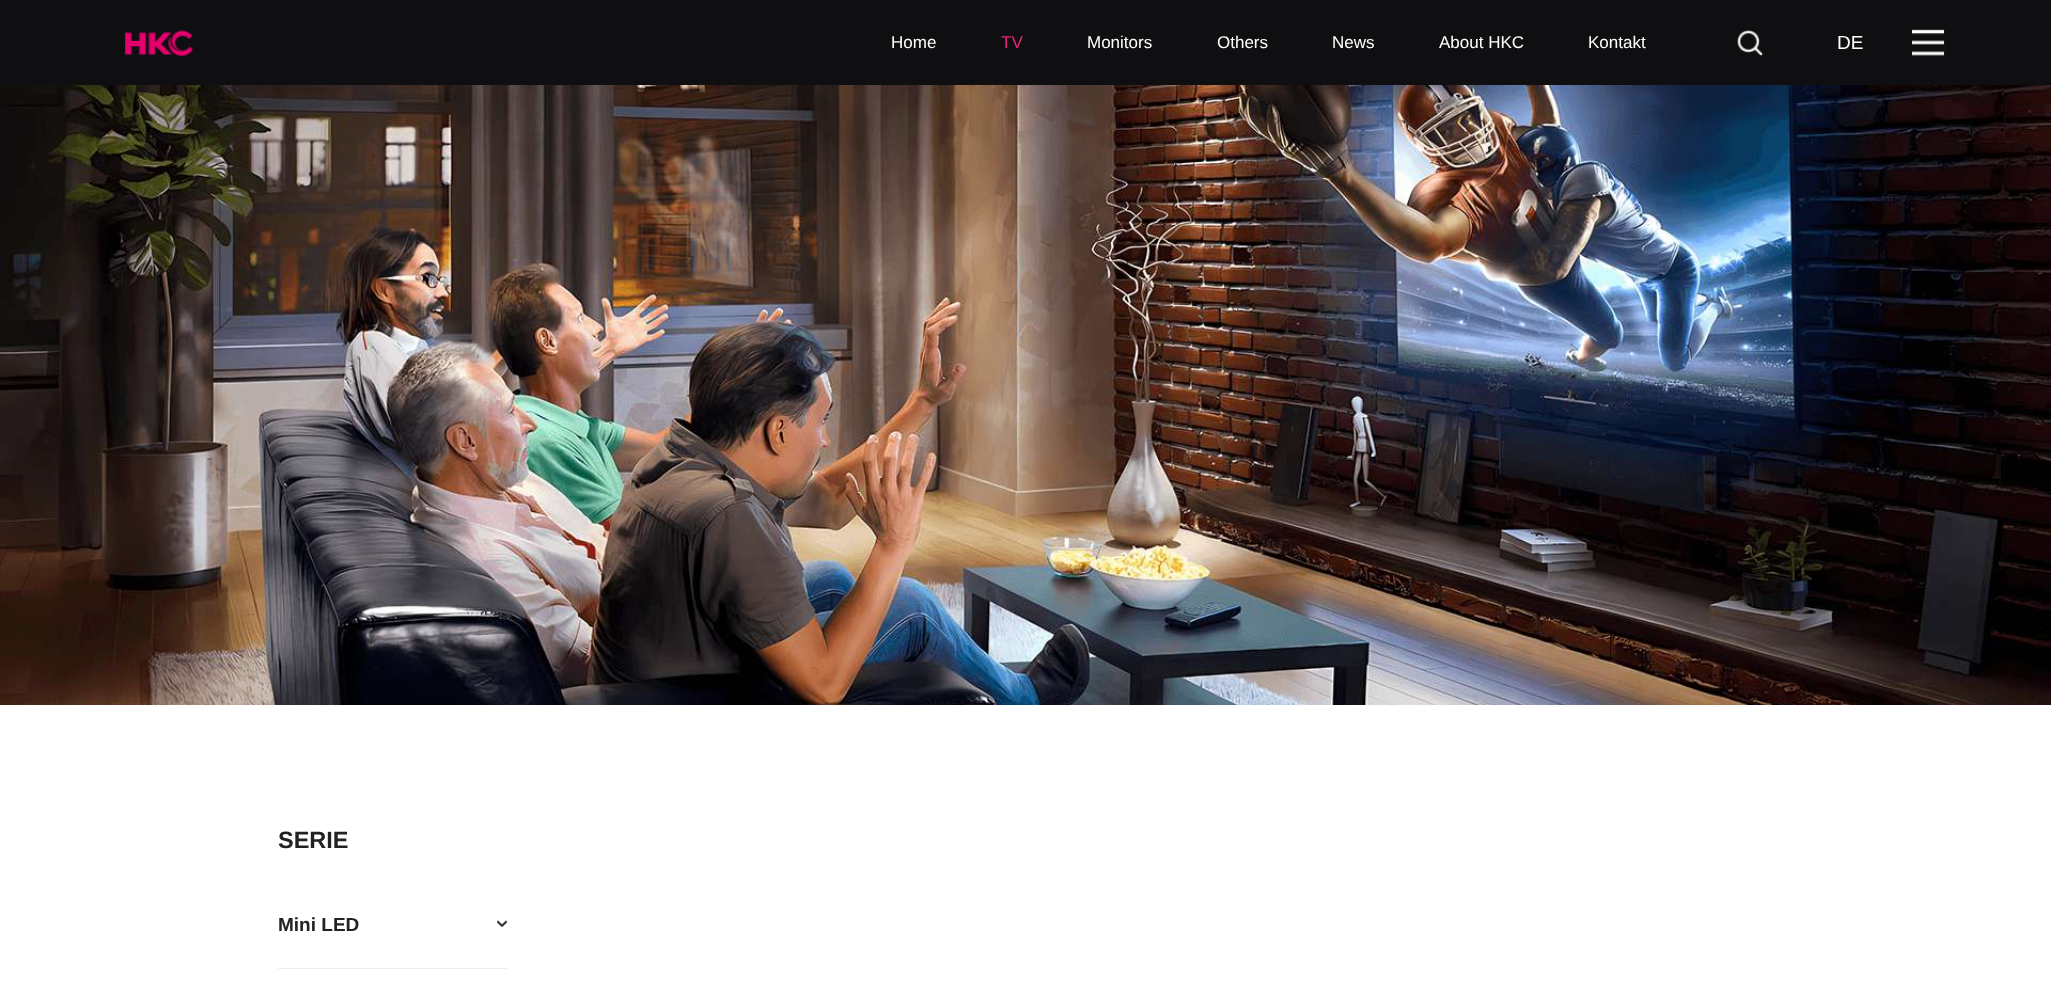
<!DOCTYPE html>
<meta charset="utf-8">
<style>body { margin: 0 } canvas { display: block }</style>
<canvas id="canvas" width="2051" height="992"></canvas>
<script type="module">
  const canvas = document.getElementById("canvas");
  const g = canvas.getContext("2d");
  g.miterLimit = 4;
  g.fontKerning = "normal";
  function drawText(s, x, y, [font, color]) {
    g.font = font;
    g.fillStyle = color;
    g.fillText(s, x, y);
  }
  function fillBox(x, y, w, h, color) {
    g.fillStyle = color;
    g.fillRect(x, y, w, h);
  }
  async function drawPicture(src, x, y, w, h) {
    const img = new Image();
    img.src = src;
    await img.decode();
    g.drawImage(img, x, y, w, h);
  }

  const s1 = ["17px Liberation Sans", "#FFFFFF"];
  const s2 = ["17px Liberation Sans", "#E7267B"];
  const s3 = ["19px Liberation Sans", "#FFFFFF"];
  const s4 = ["bold 23.5px Liberation Sans", "#222222"];
  const s5 = ["bold 19px Liberation Sans", "#222222"];

  fillBox(0, 0, 2051, 992, "#FFFFFF");
  fillBox(0, 0, 2051, 85, "#0F0F12");
  await drawPicture("pic1.png", 125, 30, 68, 26);
  drawText("Home", 891, 48, s1);
  drawText("TV", 1001, 48, s2);
  drawText("Monitors", 1087, 48, s1);
  drawText("Others", 1217, 48, s1);
  drawText("News", 1332, 48, s1);
  drawText("About HKC", 1439, 48, s1);
  drawText("Kontakt", 1588, 48, s1);
  await drawPicture("pic2.png", 1737, 30, 26, 26);
  drawText("DE", 1837, 49, s3);
  await drawPicture("pic3.png", 1912, 29, 33, 27);
  await drawPicture("pic4.png", 0, 85, 2051, 620);
  drawText("SERIE", 278, 848, s4);
  fillBox(278, 968, 229, 1, "#EEEEEE");
  drawText("Mini LED", 278, 931, s5);
  await drawPicture("pic5.png", 497, 920, 10, 7);
</script>
